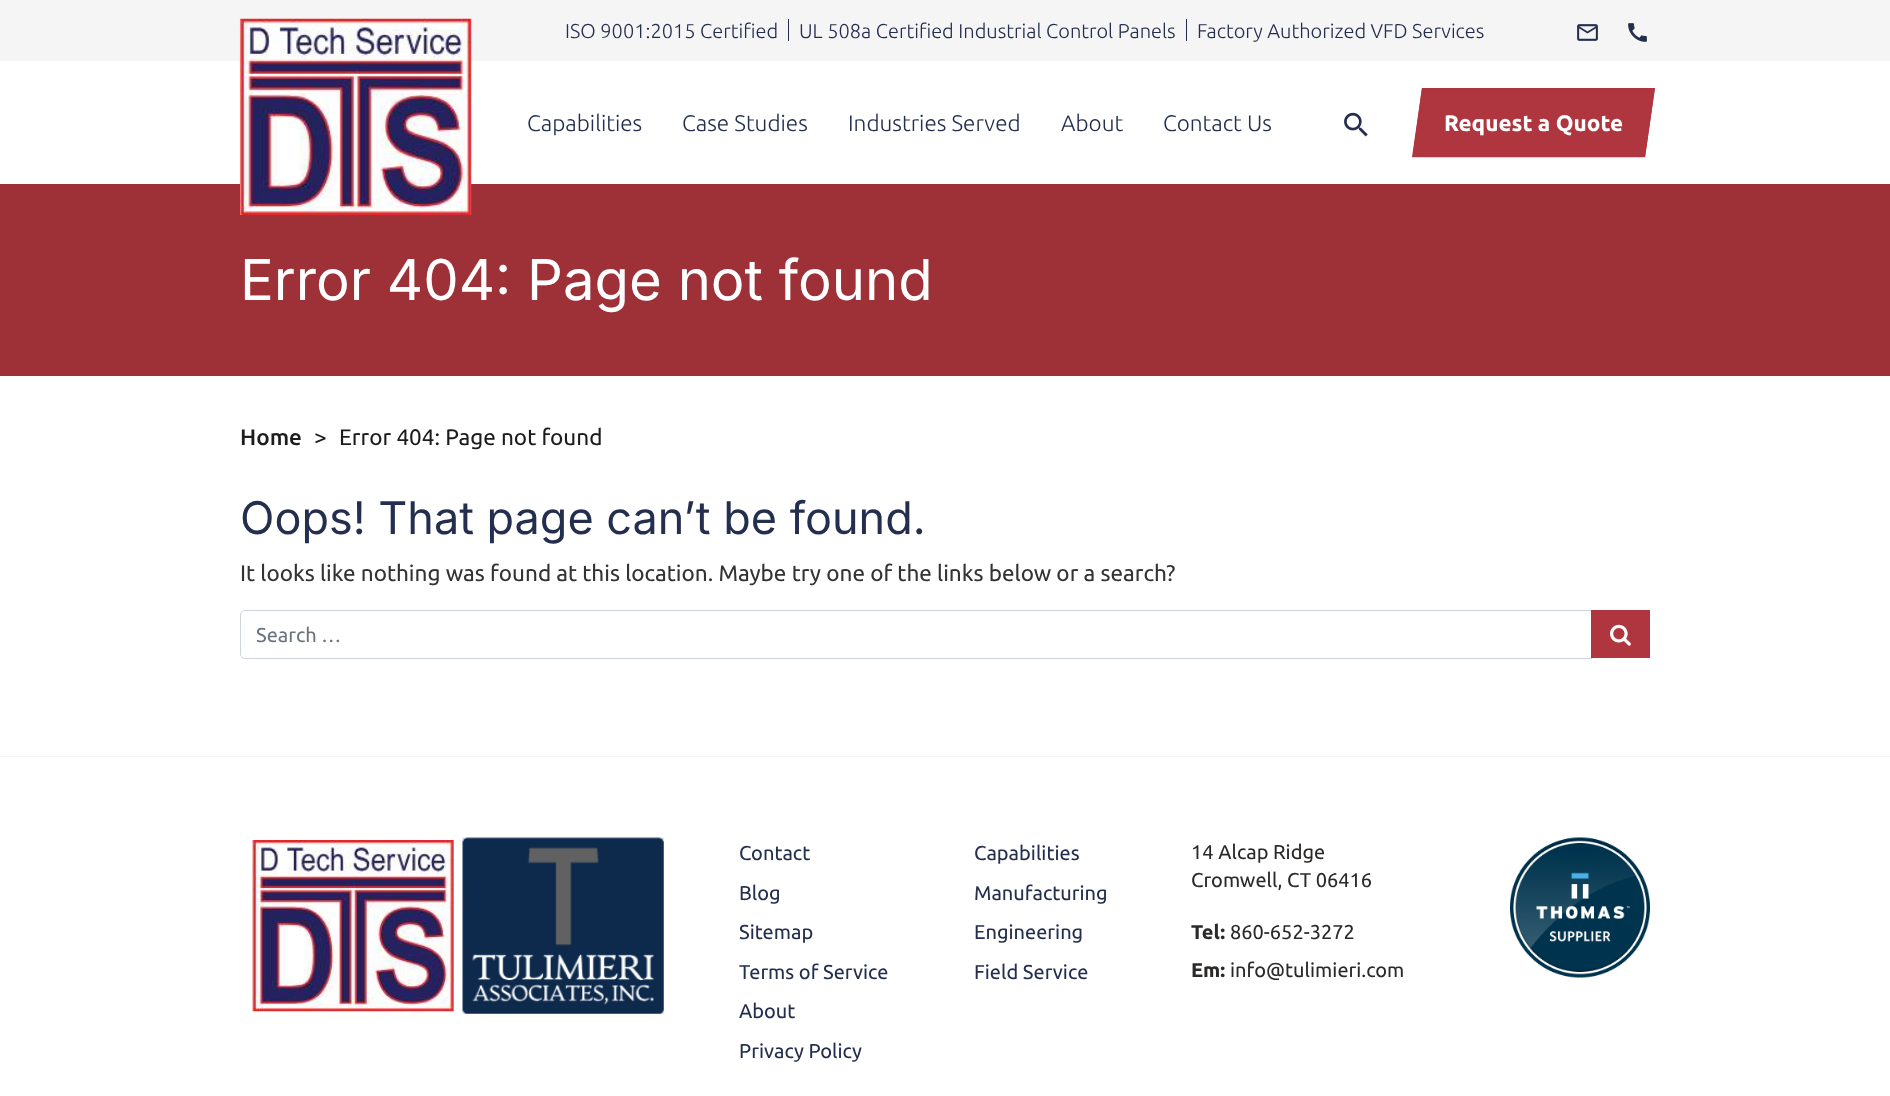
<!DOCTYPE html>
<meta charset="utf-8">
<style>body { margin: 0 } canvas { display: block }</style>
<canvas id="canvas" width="1890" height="1096"></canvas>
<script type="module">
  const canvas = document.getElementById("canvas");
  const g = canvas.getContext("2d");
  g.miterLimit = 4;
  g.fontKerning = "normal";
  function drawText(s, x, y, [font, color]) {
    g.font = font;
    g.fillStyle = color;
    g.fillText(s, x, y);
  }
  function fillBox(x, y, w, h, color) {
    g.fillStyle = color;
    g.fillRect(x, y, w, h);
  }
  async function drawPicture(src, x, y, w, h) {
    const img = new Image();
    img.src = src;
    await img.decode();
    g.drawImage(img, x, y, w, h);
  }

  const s1 = ["300 20px Ubuntu", "#242F4F"];
  const s2 = ["300 22.5px Ubuntu", "#242F4F"];
  const s3 = ["bold 22.5px Ubuntu", "#FFFFFF"];
  const s4 = ["56.25px Inter", "#FFFFFF"];
  const s5 = ["500 22.5px Ubuntu", "#1C1C1C"];
  const s6 = ["22.5px Ubuntu", "#1C1C1C"];
  const s7 = ["45px Inter", "#242F4F"];
  const s8 = ["22.5px Ubuntu", "#333333"];
  const s9 = ["20px Ubuntu", "#6C757D"];
  const s10 = ["20px Ubuntu", "#242F4F"];
  const s11 = ["20px Ubuntu", "#2C2A29"];
  const s12 = ["bold 20px Ubuntu", "#2C2A29"];

  fillBox(0, 0, 1890, 1096, "#FFFFFF");
  fillBox(0, 0, 1890, 61, "#F5F5F5");
  fillBox(788, 19, 1, 22, "#242F4F");
  drawText("ISO 9001:2015 Certified", 565, 38, s1);
  fillBox(1186, 19, 1, 22, "#242F4F");
  drawText("UL 508a Certified Industrial Control Panels", 799, 38, s1);
  drawText("Factory Authorized VFD Services", 1197, 38, s1);
  await drawPicture("pic1.png", 1577, 24, 21, 17);
  await drawPicture("pic2.png", 1628, 23, 19, 19);
  fillBox(0, 184, 1890, 192, "#9E3138");
  await drawPicture("pic3.png", 240, 18, 232, 197);
  drawText("Capabilities", 527, 131, s2);
  drawText("Case Studies", 682, 131, s2);
  drawText("Industries Served", 848, 131, s2);
  drawText("About", 1061, 131, s2);
  drawText("Contact Us", 1163, 131, s2);
  await drawPicture("pic4.png", 1344, 112, 24, 25);
  g.fillStyle = "#AF363E";
  g.beginPath();
  g.moveTo(1422, 88);
  g.lineTo(1655, 88);
  g.lineTo(1645, 157);
  g.lineTo(1412, 157);
  g.closePath();
  g.fill();
  g.beginPath();
  g.moveTo(1423, 89.5);
  g.lineTo(1653.5, 89.5);
  g.lineTo(1644, 156);
  g.lineTo(1414, 156);
  g.closePath();
  g.strokeStyle = "#AF363E";
  g.lineWidth = 2.5;
  g.stroke();
  drawText("Request a Quote", 1444, 131, s3);
  drawText("Error 404: Page not found", 240, 300, s4);
  drawText("Home", 240, 445, s5);
  drawText(">", 314, 445, s6);
  drawText("Error 404: Page not found", 339, 445, s6);
  drawText("Oops! That page can’t be found.", 240, 534, s7);
  drawText("It looks like nothing was found at this location. Maybe try one of the links below or a search?", 240, 581, s8);
  g.beginPath();
  g.roundRect(240.5, 610.5, 1352, 48, [4.5, 0, 0, 4.5]);
  g.strokeStyle = "#CED4DA";
  g.lineWidth = 1;
  g.stroke();
  drawText("Search …", 256, 642, s9);
  fillBox(1591, 610, 59, 48, "#AF363E");
  await drawPicture("pic5.png", 1610, 624, 21, 22);
  fillBox(0, 756, 1890, 1, "#F5F5F5");
  await drawPicture("pic6.png", 252, 840, 202, 172);
  await drawPicture("pic7.png", 462, 837, 202, 177);
  drawText("Contact", 739, 860, s10);
  drawText("Blog", 739, 900, s10);
  drawText("Sitemap", 739, 939, s10);
  drawText("Terms of Service", 739, 979, s10);
  drawText("About", 739, 1018, s10);
  drawText("Privacy Policy", 739, 1058, s10);
  drawText("Capabilities", 974, 860, s10);
  drawText("Manufacturing", 974, 900, s10);
  drawText("Engineering", 974, 939, s10);
  drawText("Field Service", 974, 979, s10);
  drawText("14 Alcap Ridge", 1191, 859, s11);
  drawText("Cromwell, CT 06416", 1191, 887, s11);
  drawText("Tel:", 1191, 939, s12);
  drawText("860-652-3272", 1230, 939, s11);
  drawText("Em:", 1191, 977, s12);
  drawText("info@tulimieri.com", 1230, 977, s11);
  await drawPicture("pic8.png", 1510, 837, 140, 141);
</script>
